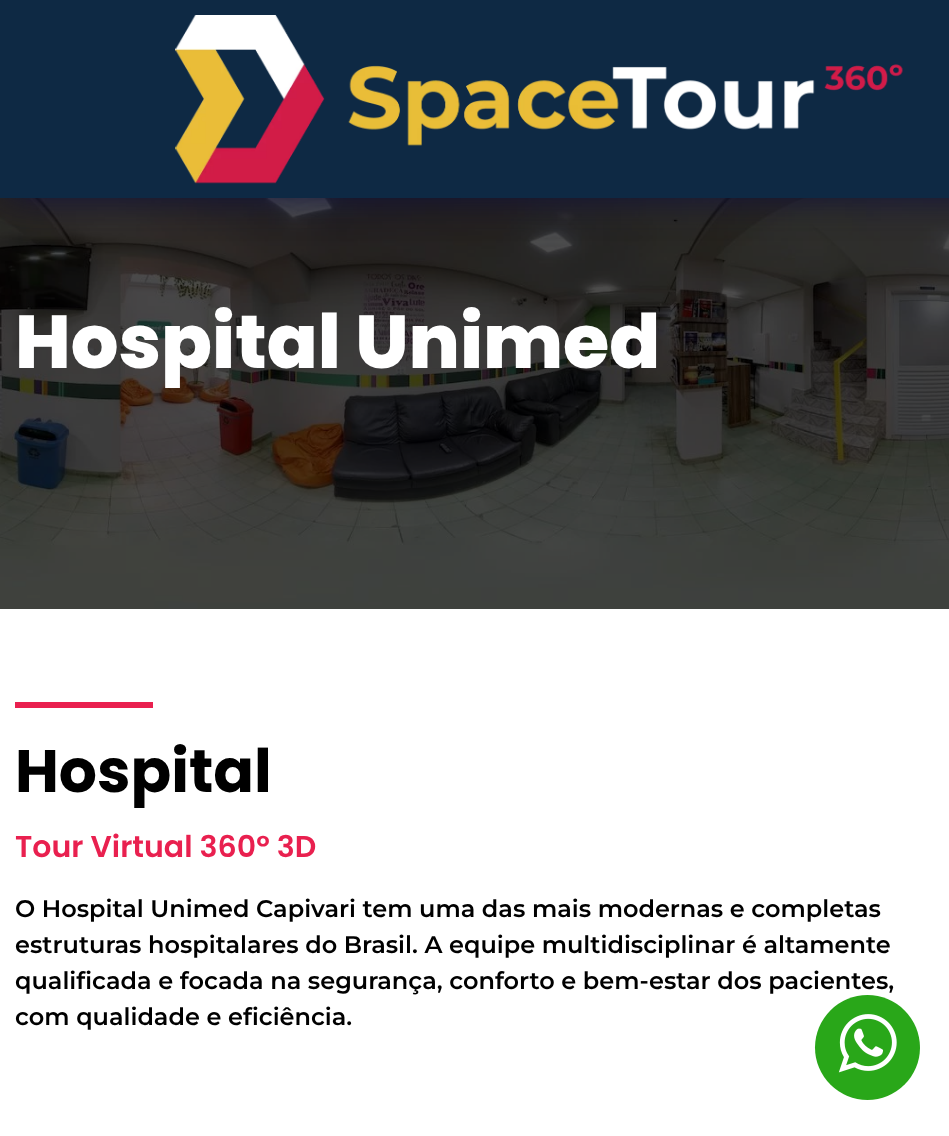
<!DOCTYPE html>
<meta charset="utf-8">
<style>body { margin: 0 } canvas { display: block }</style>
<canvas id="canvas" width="949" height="1136"></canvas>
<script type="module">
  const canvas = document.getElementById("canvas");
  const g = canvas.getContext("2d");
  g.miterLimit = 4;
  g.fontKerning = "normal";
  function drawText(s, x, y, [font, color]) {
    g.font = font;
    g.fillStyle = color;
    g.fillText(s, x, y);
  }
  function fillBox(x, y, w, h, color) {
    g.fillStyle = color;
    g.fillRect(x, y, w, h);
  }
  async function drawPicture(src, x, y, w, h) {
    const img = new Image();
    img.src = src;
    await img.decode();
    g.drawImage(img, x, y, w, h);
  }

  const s1 = ["800 75px Poppins", "#FFFFFF"];
  const s2 = ["bold 60px Poppins", "#000000"];
  const s3 = ["600 30px Poppins", "#E9204F"];
  const s4 = ["600 24px Montserrat", "#000000"];

  fillBox(0, 0, 949, 1136, "#FFFFFF");
  await drawPicture("pic2.png", 0, 198, 949, 411);
  g.fillStyle = "#0F0F3E";
  g.filter = "blur(19px)";
  g.beginPath();
  g.rect(6, 8, 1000, 187);
  g.fill();
  g.filter = "none";
  fillBox(0, 0, 949, 198, "#0E2944");
  await drawPicture("pic1.png", 175, 15, 728, 169);
  drawText("Hospital Unimed", 15, 368, s1);
  fillBox(15, 702, 138, 6, "#E9204F");
  drawText("Hospital", 15, 792, s2);
  drawText("Tour Virtual 360º 3D", 15, 857, s3);
  drawText("O Hospital Unimed Capivari tem uma das mais modernas e completas", 15, 917, s4);
  drawText("estruturas hospitalares do Brasil. A equipe multidisciplinar é altamente", 15, 953, s4);
  drawText("qualificada e focada na segurança, conforto e bem-estar dos pacientes,", 15, 989, s4);
  drawText("com qualidade e eficiência.", 15, 1025, s4);
  g.fillStyle = "#29A719";
  g.beginPath();
  g.arc(867.5, 1047.5, 52.5, 0, Math.PI * 2);
  g.fill();
  await drawPicture("pic3.png", 838, 1014, 59, 59);
</script>
